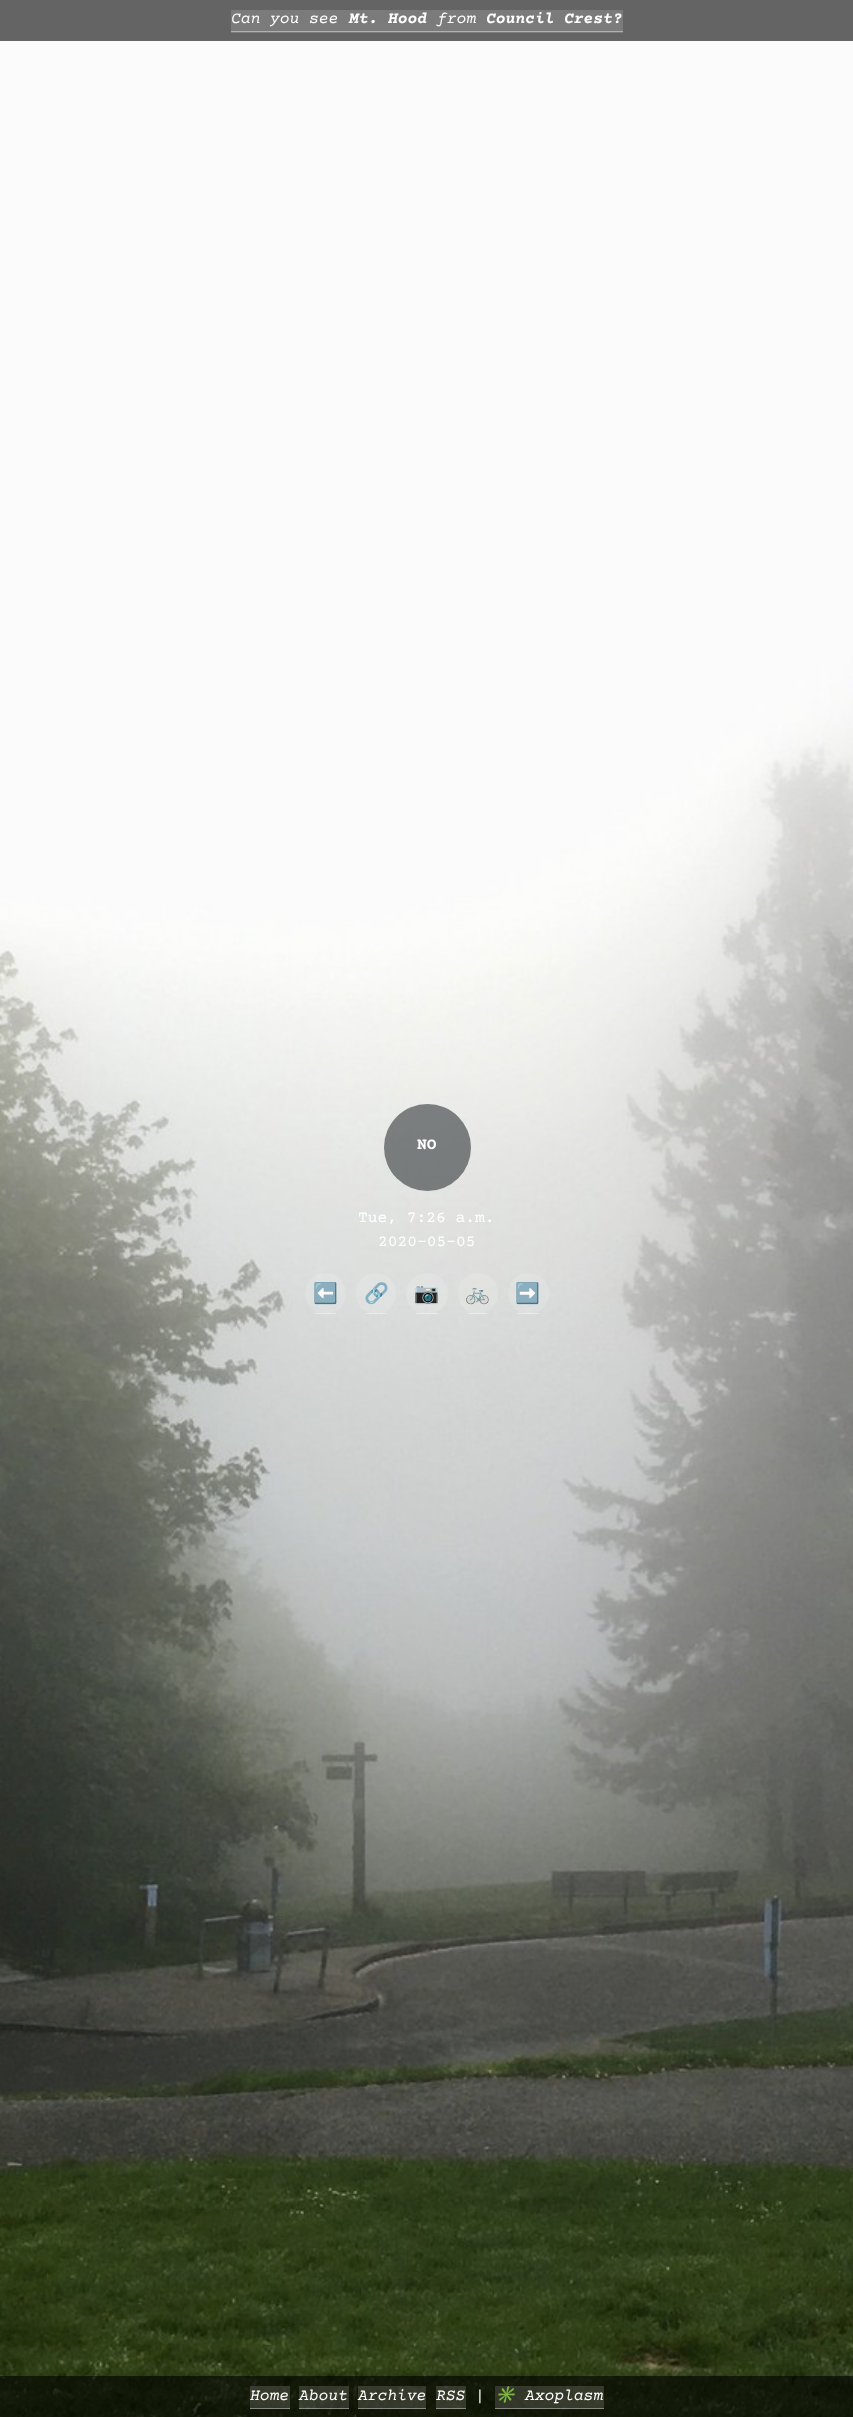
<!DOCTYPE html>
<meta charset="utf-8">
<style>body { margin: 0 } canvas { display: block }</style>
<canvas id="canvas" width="853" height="2417"></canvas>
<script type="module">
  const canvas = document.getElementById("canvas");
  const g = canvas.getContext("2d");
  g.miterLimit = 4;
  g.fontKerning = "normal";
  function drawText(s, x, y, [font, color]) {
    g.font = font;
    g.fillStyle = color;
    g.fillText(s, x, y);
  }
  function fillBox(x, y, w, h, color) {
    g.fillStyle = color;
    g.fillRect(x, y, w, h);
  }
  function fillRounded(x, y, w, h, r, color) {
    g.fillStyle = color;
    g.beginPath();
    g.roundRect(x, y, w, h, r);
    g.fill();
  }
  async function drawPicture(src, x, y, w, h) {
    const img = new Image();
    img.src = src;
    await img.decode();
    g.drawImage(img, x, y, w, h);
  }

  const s1 = ["italic 16.25px Courier Prime", "#FFFFFF"];
  const s2 = ["italic bold 16.25px Courier Prime", "#FFFFFF"];
  const s3 = ["bold 16.25px Courier Prime", "#FFFFFF"];
  const s4 = ["16.25px Courier Prime", "#FFFFFF"];
  const s5 = ["20px Noto Color Emoji", "#FFFFFF"];
  const s6 = ["italic 16.25px Noto Color Emoji", "#FFFFFF"];

  fillBox(0, 0, 853, 2417, "#FFFFFF");
  fillBox(0, 0, 853, 41, "#646464");
  fillBox(231, 10, 392, 23, "#7B7B7B");
  drawText("Can you see", 231, 23, s1);
  fillBox(231, 31, 392, 1, "#B0B0B0");
  drawText("Mt. Hood", 349, 23, s2);
  drawText("from", 437, 23, s1);
  drawText("Council Crest?", 486, 23, s2);
  await drawPicture("pic1.png", 0, 41, 853, 2376);
  g.fillStyle = "rgba(46, 53, 56, 0.6)";
  g.beginPath();
  g.arc(427.5, 1147.5, 43.5, 0, Math.PI * 2);
  g.fill();
  drawText("NO", 417, 1149, s3);
  drawText("Tue, 7:26 a.m.", 358, 1222, s4);
  drawText("2020-05-05", 378, 1246, s4);
  g.fillStyle = "rgba(255, 255, 255, 0.15)";
  g.beginPath();
  g.arc(325.5, 1293.5, 20.5, 0, Math.PI * 2);
  g.fill();
  fillBox(315, 1313, 21, 1, "rgba(255, 255, 255, 0.4)");
  drawText("⬅️", 313, 1300, s5);
  fillRounded(356, 1273, 40, 41, 20, "rgba(255, 255, 255, 0.15)");
  fillBox(366, 1313, 20, 1, "rgba(255, 255, 255, 0.4)");
  drawText("🔗", 364, 1300, s5);
  fillRounded(406, 1273, 42, 41, 20.5, "rgba(255, 255, 255, 0.15)");
  fillBox(416, 1313, 22, 1, "rgba(255, 255, 255, 0.4)");
  drawText("📷", 414, 1300, s5);
  fillRounded(458, 1273, 40, 41, 20, "rgba(255, 255, 255, 0.15)");
  fillBox(468, 1313, 20, 1, "rgba(255, 255, 255, 0.4)");
  drawText("🚲", 465, 1300, s5);
  g.fillStyle = "rgba(255, 255, 255, 0.15)";
  g.beginPath();
  g.arc(528.5, 1293.5, 20.5, 0, Math.PI * 2);
  g.fill();
  fillBox(518, 1313, 21, 1, "rgba(255, 255, 255, 0.4)");
  drawText("➡️", 515, 1300, s5);
  fillBox(0, 2376, 853, 41, "rgba(0, 0, 0, 0.6)");
  fillBox(250, 2386, 40, 23, "rgba(255, 255, 255, 0.15)");
  drawText("Home", 250, 2400, s1);
  fillBox(250, 2408, 40, 1, "rgba(255, 255, 255, 0.4)");
  fillBox(299, 2386, 50, 23, "rgba(255, 255, 255, 0.15)");
  drawText("About", 299, 2400, s1);
  fillBox(299, 2408, 50, 1, "rgba(255, 255, 255, 0.4)");
  fillBox(358, 2386, 68, 23, "rgba(255, 255, 255, 0.15)");
  drawText("Archive", 358, 2400, s1);
  fillBox(358, 2408, 68, 1, "rgba(255, 255, 255, 0.4)");
  fillBox(436, 2386, 30, 23, "rgba(255, 255, 255, 0.15)");
  drawText("RSS", 436, 2400, s1);
  fillBox(436, 2408, 30, 1, "rgba(255, 255, 255, 0.4)");
  drawText("|", 475, 2400, s4);
  fillBox(495, 2386, 109, 23, "rgba(255, 255, 255, 0.15)");
  drawText("✳️", 495, 2400, s6);
  drawText("Axoplasm", 525, 2400, s1);
  fillBox(495, 2408, 109, 1, "rgba(255, 255, 255, 0.4)");
</script>
